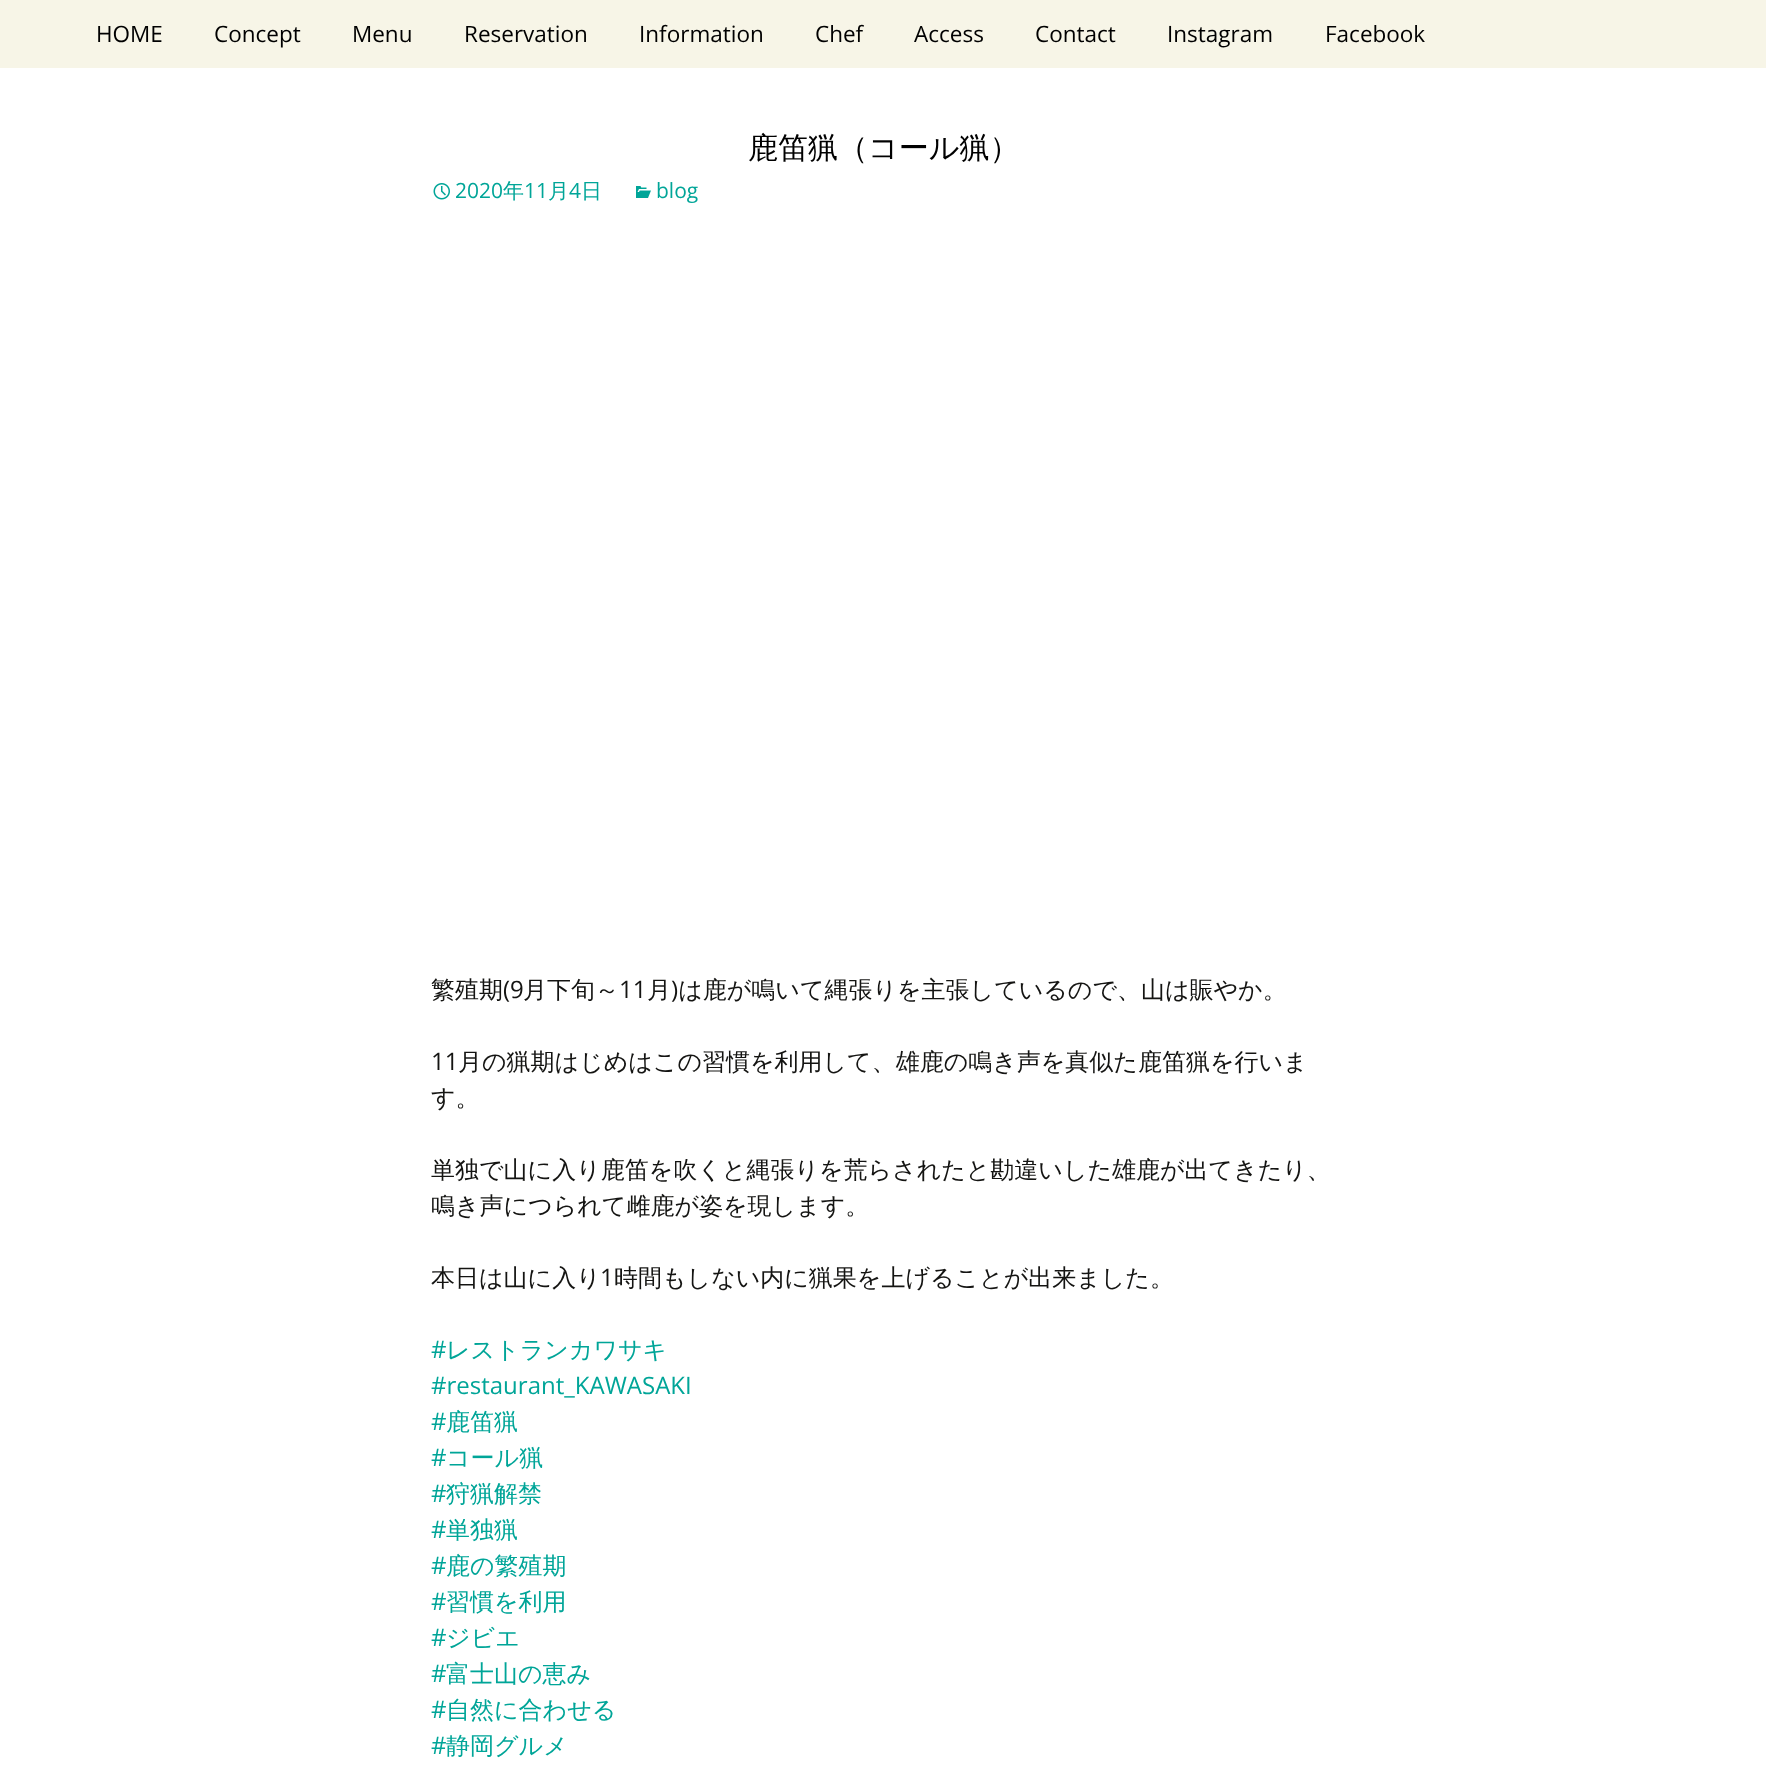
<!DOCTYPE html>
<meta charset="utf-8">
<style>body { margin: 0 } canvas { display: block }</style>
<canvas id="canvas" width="1766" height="1768"></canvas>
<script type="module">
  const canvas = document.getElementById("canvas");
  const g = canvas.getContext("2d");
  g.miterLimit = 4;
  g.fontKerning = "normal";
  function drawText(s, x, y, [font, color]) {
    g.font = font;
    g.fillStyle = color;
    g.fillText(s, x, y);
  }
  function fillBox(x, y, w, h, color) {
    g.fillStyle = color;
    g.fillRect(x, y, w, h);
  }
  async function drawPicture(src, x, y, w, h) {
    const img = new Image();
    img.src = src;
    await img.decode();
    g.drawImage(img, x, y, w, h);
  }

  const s1 = ["22.5px Open Sans", "#000000"];
  const s2 = ["500 30px WenQuanYi Zen Hei", "#000000"];
  const s3 = ["21px Open Sans", "#00A598"];
  const s4 = ["500 21px WenQuanYi Zen Hei", "#00A598"];
  const s5 = ["500 24px WenQuanYi Zen Hei", "#141412"];
  const s6 = ["24px Open Sans", "#141412"];
  const s7 = ["24px Open Sans", "#00A598"];
  const s8 = ["500 24px WenQuanYi Zen Hei", "#00A598"];

  fillBox(0, 0, 1766, 1768, "#FFFFFF");
  fillBox(0, 0, 1766, 68, "#F7F5E7");
  drawText("HOME", 96, 42, s1);
  drawText("Concept", 214, 42, s1);
  drawText("Menu", 352, 42, s1);
  drawText("Reservation", 464, 42, s1);
  drawText("Information", 639, 42, s1);
  drawText("Chef", 815, 42, s1);
  drawText("Access", 914, 42, s1);
  drawText("Contact", 1035, 42, s1);
  drawText("Instagram", 1167, 42, s1);
  drawText("Facebook", 1325, 42, s1);
  drawText("鹿笛猟（コール猟）", 748, 158, s2);
  await drawPicture("pic1.png", 433, 183, 17, 17);
  drawText("2020", 455, 198, s3);
  drawText("年", 503, 198, s4);
  drawText("11", 524, 198, s3);
  drawText("月", 548, 198, s4);
  drawText("4", 569, 198, s3);
  drawText("日", 581, 198, s4);
  await drawPicture("pic2.png", 636, 186, 15, 12);
  drawText("blog", 656, 198, s3);
  drawText("繁殖期", 431, 998, s5);
  drawText("(9", 503, 998, s6);
  drawText("月下旬～", 523, 998, s5);
  drawText("11", 619, 998, s6);
  drawText("月 は鹿が鳴いて縄張りを主張しているので、山は賑やか。", 647, 998, s5);
  drawText(")", 671, 998, s6);
  drawText("11", 431, 1070, s6);
  drawText("月の猟期はじめはこの習慣を利用して、雄鹿の鳴き声を真似た鹿笛猟を行いま", 458, 1070, s5);
  drawText("す。", 431, 1106, s5);
  drawText("単独で山に入り鹿笛を吹くと縄張りを荒らされたと勘違いした雄鹿が出てきたり、", 431, 1178, s5);
  drawText("鳴き声につられて雌鹿が姿を現します。", 431, 1214, s5);
  drawText("本日は山に入り", 431, 1286, s5);
  drawText("1", 600, 1286, s6);
  drawText("時間もしない内に猟果を上げることが出来ました。", 614, 1286, s5);
  drawText("#", 431, 1358, s7);
  drawText("レストランカワサキ", 446, 1358, s8);
  drawText("#restaurant_KAWASAKI", 431, 1394, s7);
  drawText("#", 431, 1430, s7);
  drawText("鹿笛猟", 446, 1430, s8);
  drawText("#", 431, 1466, s7);
  drawText("コール猟", 446, 1466, s8);
  drawText("#", 431, 1502, s7);
  drawText("狩猟解禁", 446, 1502, s8);
  drawText("#", 431, 1538, s7);
  drawText("単独猟", 446, 1538, s8);
  drawText("#", 431, 1574, s7);
  drawText("鹿の繁殖期", 446, 1574, s8);
  drawText("#", 431, 1610, s7);
  drawText("習慣を利用", 446, 1610, s8);
  drawText("#", 431, 1646, s7);
  drawText("ジビエ", 446, 1646, s8);
  drawText("#", 431, 1682, s7);
  drawText("富士山の恵み", 446, 1682, s8);
  drawText("#", 431, 1718, s7);
  drawText("自然に合わせる", 446, 1718, s8);
  drawText("#", 431, 1754, s7);
  drawText("静岡グルメ", 446, 1754, s8);
</script>
